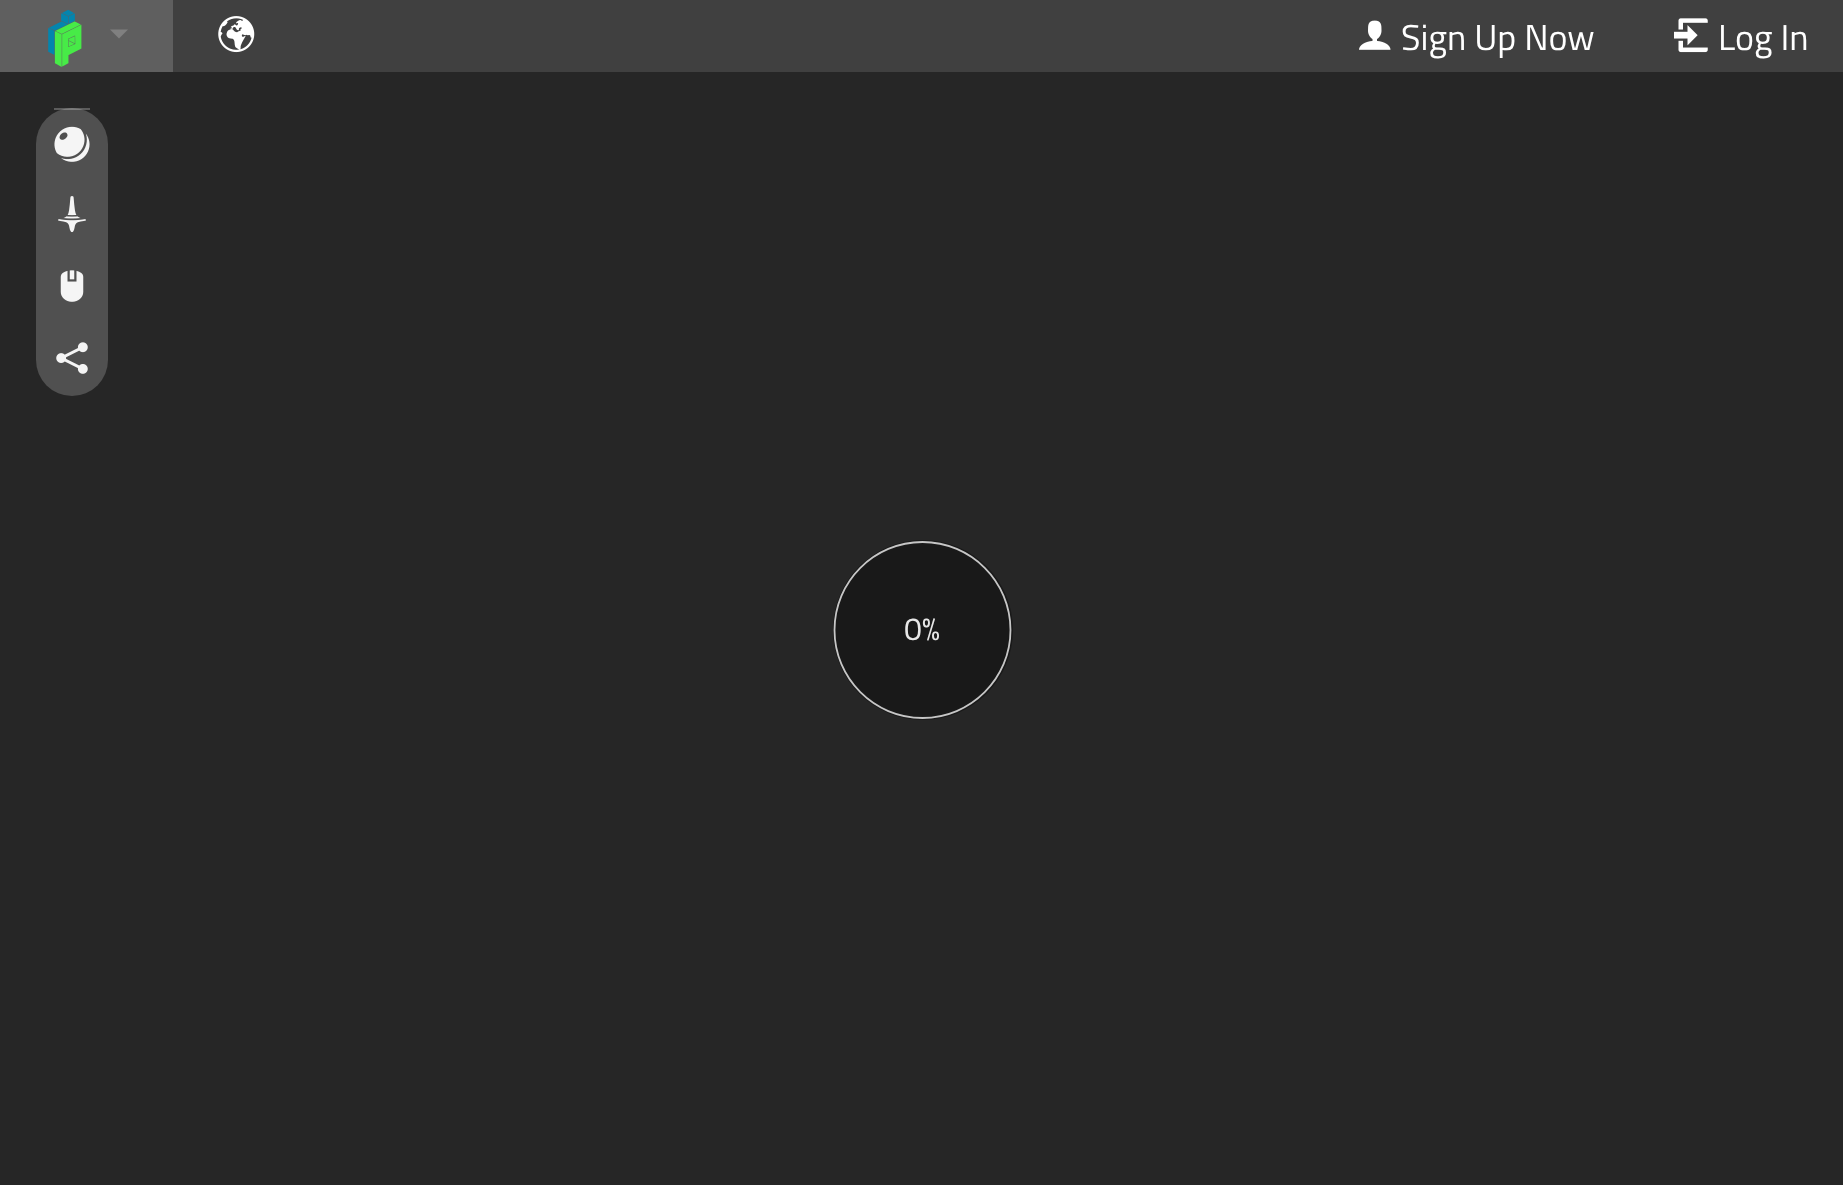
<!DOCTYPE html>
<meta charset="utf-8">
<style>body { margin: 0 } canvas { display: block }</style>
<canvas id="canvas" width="1843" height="1185"></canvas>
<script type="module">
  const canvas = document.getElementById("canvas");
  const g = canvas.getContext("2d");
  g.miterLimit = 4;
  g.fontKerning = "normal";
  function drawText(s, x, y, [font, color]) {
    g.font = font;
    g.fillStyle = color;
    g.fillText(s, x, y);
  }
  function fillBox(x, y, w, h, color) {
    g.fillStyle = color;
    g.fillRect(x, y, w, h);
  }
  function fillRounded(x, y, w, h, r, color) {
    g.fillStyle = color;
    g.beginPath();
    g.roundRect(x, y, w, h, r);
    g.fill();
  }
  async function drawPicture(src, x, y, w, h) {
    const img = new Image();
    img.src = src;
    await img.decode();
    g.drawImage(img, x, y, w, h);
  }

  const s1 = ["36px Titillium Web", "#FFFFFF"];
  const s2 = ["32px Titillium Web", "#E8E8E8"];

  fillBox(0, 0, 1843, 1185, "#262626");
  fillBox(173, 0, 1670, 72, "#404040");
  fillBox(0, 0, 173, 72, "#5F5F5F");
  await drawPicture("pic1.png", 48, 9, 27, 46);
  await drawPicture("pic2.png", 54, 21, 28, 46);
  g.fillStyle = "#808080";
  g.beginPath();
  g.moveTo(110, 29.5);
  g.lineTo(119, 38.5);
  g.lineTo(128, 29.5);
  g.closePath();
  g.fill();
  await drawPicture("pic3.png", 218, 16, 37, 37);
  await drawPicture("pic4.png", 1359, 20, 32, 30);
  drawText("Sign Up Now", 1401, 50, s1);
  await drawPicture("pic5.png", 1674, 18, 34, 35);
  drawText("Log In", 1718, 50, s1);
  fillRounded(36, 108, 72, 288, 36, "#505050");
  fillBox(54, 108, 36, 2, "rgba(255, 255, 255, 0.25)");
  await drawPicture("pic6.png", 54, 126, 36, 36);
  await drawPicture("pic7.png", 58, 196, 28, 37);
  await drawPicture("pic8.png", 60, 270, 24, 32);
  await drawPicture("pic9.png", 56, 342, 32, 32);
  g.fillStyle = "#191919";
  g.beginPath();
  g.arc(923, 630, 90, 0, Math.PI * 2);
  g.fill();
  drawText("0%", 904, 640, s2);
  g.beginPath();
  g.moveTo(922.5, 542);
  g.bezierCurveTo(971, 542, 1010.5, 581.5, 1010.5, 630);
  g.bezierCurveTo(1010.5, 678.5, 971, 718, 922.5, 718);
  g.bezierCurveTo(874, 718, 834.5, 678.5, 834.5, 630);
  g.bezierCurveTo(834.5, 581.5, 874, 542, 922.5, 542);
  g.strokeStyle = "#C6C6C6";
  g.lineWidth = 1.8;
  g.stroke();
</script>
